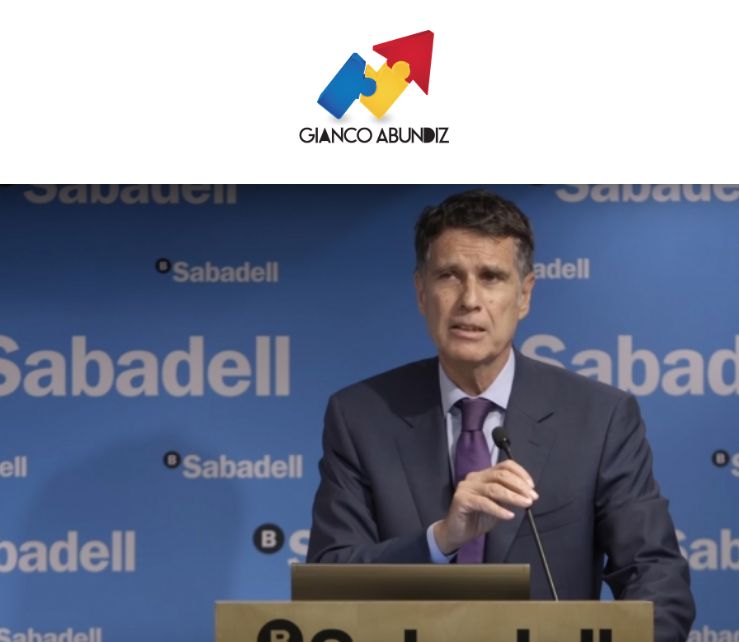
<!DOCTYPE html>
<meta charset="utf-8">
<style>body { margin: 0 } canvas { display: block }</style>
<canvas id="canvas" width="739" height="642"></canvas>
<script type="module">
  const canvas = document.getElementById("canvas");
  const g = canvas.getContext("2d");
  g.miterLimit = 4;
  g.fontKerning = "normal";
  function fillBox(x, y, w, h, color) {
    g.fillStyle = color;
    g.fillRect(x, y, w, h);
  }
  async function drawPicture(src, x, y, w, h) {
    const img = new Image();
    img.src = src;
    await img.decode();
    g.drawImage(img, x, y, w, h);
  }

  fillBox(0, 0, 739, 642, "#FFFFFF");
  await drawPicture("pic1.png", 299, 30, 150, 114);
  await drawPicture("pic2.png", 0, 184, 739, 458);
</script>
